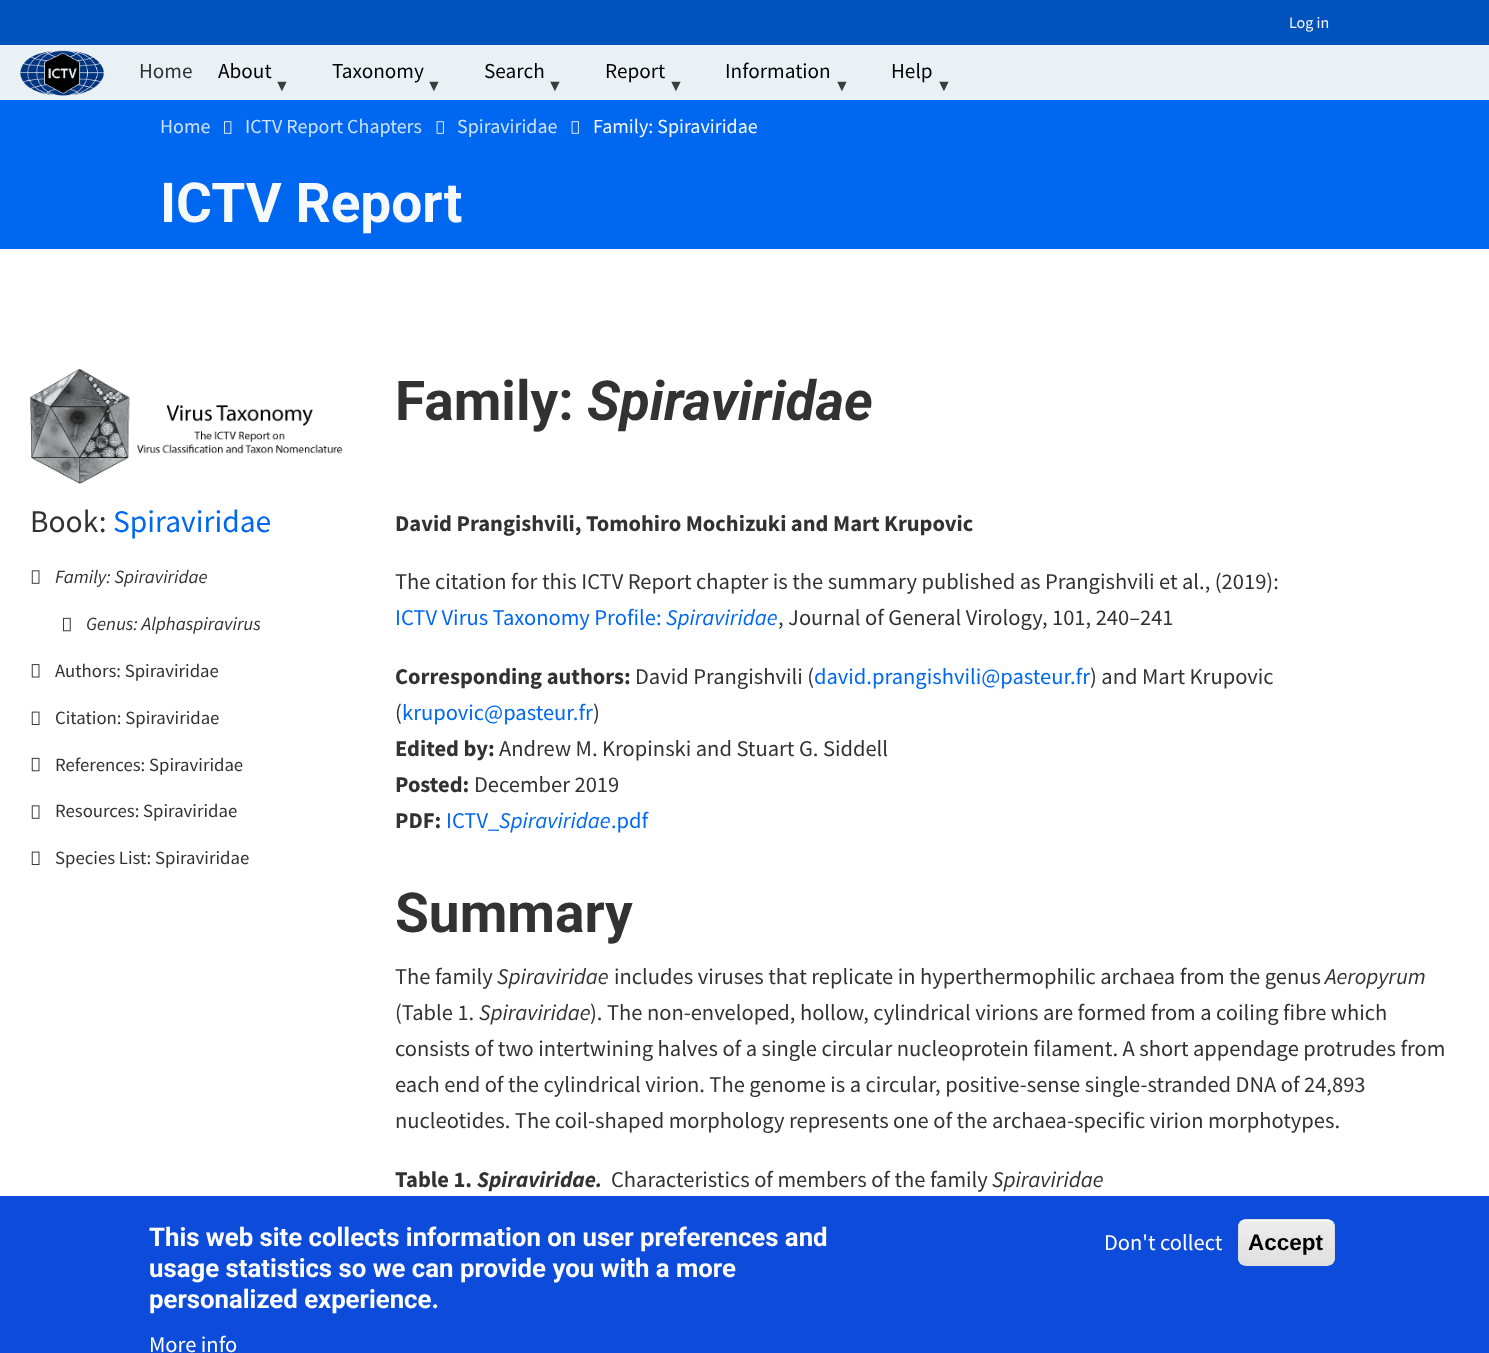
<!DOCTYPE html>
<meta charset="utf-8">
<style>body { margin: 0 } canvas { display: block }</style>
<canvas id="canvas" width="1489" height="1353"></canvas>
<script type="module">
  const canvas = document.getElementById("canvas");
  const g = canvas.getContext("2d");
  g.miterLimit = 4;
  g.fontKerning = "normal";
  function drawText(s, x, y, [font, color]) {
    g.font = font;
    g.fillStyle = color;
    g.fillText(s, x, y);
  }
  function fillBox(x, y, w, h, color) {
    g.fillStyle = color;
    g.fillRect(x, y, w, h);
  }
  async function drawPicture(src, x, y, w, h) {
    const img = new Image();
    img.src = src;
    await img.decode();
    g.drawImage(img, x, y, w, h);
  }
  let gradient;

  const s1 = ["16px Source Sans Pro", "#F6F9FC"];
  const s2 = ["21.25px Source Sans Pro", "#323232"];
  const s3 = ["21.25px Source Sans Pro", "#000000"];
  const s4 = ["16px Liberation Sans", "#3B3C3D"];
  const s5 = ["20px Source Sans Pro", "#CCE2FF"];
  const s6 = ["20px Source Sans Pro", "#F6F9FC"];
  const s7 = ["bold 55px Roboto", "#F6F9FC"];
  const s8 = ["31.5px Source Sans Pro", "#323232"];
  const s9 = ["31.5px Source Sans Pro", "#0068F0"];
  const s10 = ["italic 18.75px Source Sans Pro", "#323232"];
  const s11 = ["18.75px Source Sans Pro", "#323232"];
  const s12 = ["bold 55px Roboto", "#323232"];
  const s13 = ["italic bold 55px Roboto", "#323232"];
  const s14 = ["bold 22.5px Source Sans Pro", "#323232"];
  const s15 = ["22.5px Source Sans Pro", "#323232"];
  const s16 = ["22.5px Source Sans Pro", "#0068F0"];
  const s17 = ["italic 22.5px Source Sans Pro", "#0068F0"];
  const s18 = ["italic 22.5px Source Sans Pro", "#323232"];
  const s19 = ["italic bold 22.5px Source Sans Pro", "#323232"];
  const s20 = ["bold 25.75px Roboto", "#FFFFFF"];
  const s21 = ["22.5px Source Sans Pro", "#FFFFFF"];
  const s22 = ["bold 22.5px Liberation Sans", "#000000"];

  fillBox(0, 0, 1489, 1353, "#FFFFFF");
  fillBox(0, 0, 1489, 45, "#0052BD");
  drawText("Log in", 1289, 28, s1);
  fillBox(0, 46, 1489, 54, "#EAF1F5");
  fillBox(0, 45, 1489, 1, "#EEF4F7");
  await drawPicture("pic1.png", 20, 50, 85, 46);
  drawText("Home", 139, 78, s2);
  drawText("About", 218, 78, s3);
  drawText("▼", 274, 91, s4);
  drawText("Taxonomy", 332, 78, s3);
  drawText("▼", 426, 91, s4);
  drawText("Search", 484, 78, s3);
  drawText("▼", 547, 91, s4);
  drawText("Report", 605, 78, s3);
  drawText("▼", 668, 91, s4);
  drawText("Information", 725, 78, s3);
  drawText("▼", 834, 91, s4);
  drawText("Help", 891, 78, s3);
  drawText("▼", 936, 91, s4);
  fillBox(0, 100, 1489, 149, "#0068F0");
  drawText("Home", 160, 133, s5);
  await drawPicture("pic2.png", 224, 121, 8, 13);
  drawText("ICTV Report Chapters", 245, 133, s5);
  await drawPicture("pic3.png", 436, 121, 8, 13);
  drawText("Spiraviridae", 457, 133, s5);
  await drawPicture("pic3.png", 571, 121, 8, 13);
  drawText("Family: Spiraviridae", 593, 133, s6);
  drawText("ICTV Report", 160, 222, s7);
  await drawPicture("pic4.png", 30, 368, 313, 116);
  drawText("Book:", 30, 532, s8);
  drawText("Spiraviridae", 113, 532, s9);
  await drawPicture("pic5.png", 31, 570, 9, 14);
  drawText("Family: Spiraviridae", 55, 583, s10);
  await drawPicture("pic6.png", 63, 617, 8, 15);
  drawText("Genus: Alphaspiravirus", 86, 630, s10);
  await drawPicture("pic7.png", 31, 664, 9, 14);
  drawText("Authors: Spiraviridae", 55, 677, s11);
  await drawPicture("pic8.png", 31, 711, 9, 14);
  drawText("Citation: Spiraviridae", 55, 724, s11);
  await drawPicture("pic9.png", 31, 757, 9, 15);
  drawText("References: Spiraviridae", 55, 771, s11);
  await drawPicture("pic10.png", 31, 805, 9, 14);
  drawText("Resources: Spiraviridae", 55, 817, s11);
  await drawPicture("pic8.png", 31, 851, 9, 14);
  drawText("Species List: Spiraviridae", 55, 864, s11);
  drawText("Family:", 395, 420, s12);
  drawText("Spiraviridae", 587, 420, s13);
  drawText("David Prangishvili, Tomohiro Mochizuki and Mart Krupovic", 395, 531, s14);
  drawText("The citation for this ICTV Report chapter is the summary published as Prangishvili et al., (2019):", 395, 589, s15);
  drawText("ICTV Virus Taxonomy Profile:", 395, 625, s16);
  drawText("Spiraviridae", 666, 625, s17);
  drawText(", Journal of General Virology, 101, 240–241", 778, 625, s15);
  drawText("Corresponding authors:", 395, 684, s14);
  drawText("David Prangishvili (", 635, 684, s15);
  drawText("david.prangishvili@pasteur.fr", 814, 684, s16);
  drawText(") and Mart Krupovic", 1090, 684, s15);
  drawText("(", 395, 720, s15);
  drawText("krupovic@pasteur.fr", 402, 720, s16);
  drawText(")", 593, 720, s15);
  drawText("Edited by:", 395, 756, s14);
  drawText("Andrew M. Kropinski and Stuart G. Siddell", 499, 756, s15);
  drawText("Posted:", 395, 792, s14);
  drawText("December 2019", 474, 792, s15);
  drawText("PDF:", 395, 828, s14);
  drawText("ICTV_", 446, 828, s16);
  drawText("Spiraviridae", 499, 828, s17);
  drawText(".pdf", 611, 828, s16);
  drawText("Summary", 395, 932, s12);
  drawText("The family", 395, 984, s15);
  drawText("Spiraviridae", 497, 984, s18);
  drawText("includes viruses that replicate in hyperthermophilic archaea from the genus", 614, 984, s15);
  drawText("Aeropyrum", 1325, 984, s18);
  drawText("(Table 1.", 395, 1020, s15);
  drawText("Spiraviridae", 479, 1020, s18);
  drawText("). The non-enveloped, hollow, cylindrical virions are formed from a coiling fibre which", 590, 1020, s15);
  drawText("consists of two intertwining halves of a single circular nucleoprotein filament. A short appendage protrudes from", 395, 1056, s15);
  drawText("each end of the cylindrical virion. The genome is a circular, positive-sense single-stranded DNA of 24,893", 395, 1092, s15);
  drawText("nucleotides. The coil-shaped morphology represents one of the archaea-specific virion morphotypes.", 395, 1128, s15);
  drawText("Table 1.", 395, 1187, s14);
  drawText("Spiraviridae.", 477, 1187, s19);
  drawText("Characteristics of members of the family", 611, 1187, s15);
  drawText("Spiraviridae", 992, 1187, s18);
  fillBox(0, 1196, 1489, 157, "#0D4BDB");
  drawText("This web site collects information on user preferences and", 149, 1246, s20);
  drawText("usage statistics so we can provide you with a more", 149, 1277, s20);
  drawText("personalized experience.", 149, 1308, s20);
  drawText("More info", 149, 1352, s21);
  drawText("Don't collect", 1104, 1250, s21);
  g.save();
  g.beginPath();
  g.roundRect(1238, 1219, 97, 47, 8);
  g.clip();
  gradient = g.createLinearGradient(1286, 1220, 1286, 1265);
  gradient.addColorStop(0.05, "#EDEDED");
  gradient.addColorStop(1, "#DFDFDF");
  g.fillStyle = gradient;
  g.fillRect(1238, 1220, 97, 45);
  g.restore();
  g.beginPath();
  g.moveTo(1245, 1221);
  g.lineTo(1328, 1221);
  g.bezierCurveTo(1331, 1221, 1334, 1224, 1334, 1228);
  g.bezierCurveTo(1334, 1216, 1323, 1220, 1314, 1220);
  g.lineTo(1259, 1220);
  g.bezierCurveTo(1250, 1220, 1239, 1216, 1239, 1228);
  g.bezierCurveTo(1239, 1224, 1242, 1221, 1245, 1221);
  g.closePath();
  g.fill();
  g.beginPath();
  g.roundRect(1238.5, 1219.5, 96, 46, 7.5);
  g.strokeStyle = "#DCDCDC";
  g.stroke();
  drawText("Accept", 1248, 1250, s22);
</script>
